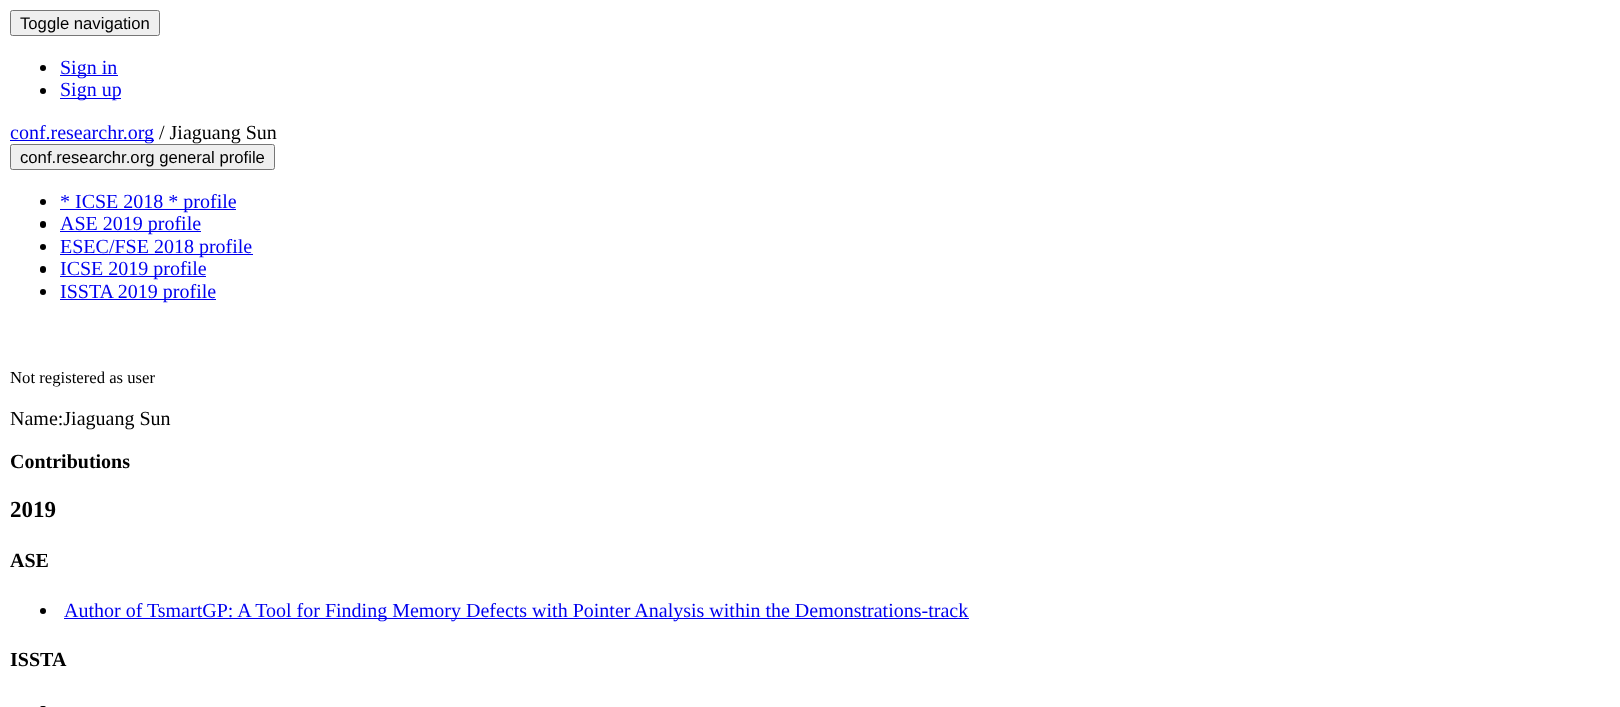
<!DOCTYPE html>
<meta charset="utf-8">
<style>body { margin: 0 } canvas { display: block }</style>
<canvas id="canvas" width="1620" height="707"></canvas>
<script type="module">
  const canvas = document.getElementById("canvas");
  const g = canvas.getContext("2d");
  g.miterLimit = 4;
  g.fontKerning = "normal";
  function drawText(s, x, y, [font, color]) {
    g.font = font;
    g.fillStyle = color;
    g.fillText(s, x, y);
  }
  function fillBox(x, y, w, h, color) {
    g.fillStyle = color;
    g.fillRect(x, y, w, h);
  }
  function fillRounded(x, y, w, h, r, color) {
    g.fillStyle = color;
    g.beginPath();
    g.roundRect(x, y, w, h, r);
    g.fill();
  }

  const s1 = ["16.7px Liberation Sans", "#000000"];
  const s2 = ["20px Liberation Serif", "#0000EE"];
  const s3 = ["20px Liberation Serif", "#000000"];
  const s4 = ["16.7px Liberation Serif", "#000000"];
  const s5 = ["bold 20px Liberation Serif", "#000000"];
  const s6 = ["bold 23px Liberation Serif", "#000000"];

  fillBox(0, 0, 1620, 707, "#FFFFFF");
  g.fillStyle = "#EFEFEF";
  g.beginPath();
  g.roundRect(10.5, 10.5, 149, 25, 2);
  g.fill();
  g.strokeStyle = "#767676";
  g.stroke();
  drawText("Toggle navigation", 20, 29, s1);
  g.beginPath();
  g.arc(43, 68, 3, 0, Math.PI * 2);
  g.fill();
  fillBox(60, 75, 58, 1, "#0000EE");
  drawText("Sign in", 60, 74, s2);
  g.fillStyle = "#000000";
  g.beginPath();
  g.arc(43, 91, 3, 0, Math.PI * 2);
  g.fill();
  fillBox(60, 98, 61, 1, "#0000EE");
  drawText("Sign up", 60, 96, s2);
  fillBox(10, 140, 144, 1, "#0000EE");
  drawText("conf.researchr.org", 10, 139, s2);
  drawText("/ Jiaguang Sun", 159, 139, s3);
  g.fillStyle = "#EFEFEF";
  g.beginPath();
  g.roundRect(10.5, 144.5, 264, 25, 2);
  g.fill();
  g.stroke();
  drawText("conf.researchr.org general profile", 20, 163, s1);
  g.beginPath();
  g.arc(43, 202, 3, 0, Math.PI * 2);
  g.fill();
  fillBox(60, 209, 176, 1, "#0000EE");
  drawText("* ICSE 2018 * profile", 60, 208, s2);
  fillRounded(40, 221, 6, 7, 3, "#000000");
  fillBox(60, 231, 141, 1, "#0000EE");
  drawText("ASE 2019 profile", 60, 230, s2);
  g.fillStyle = "#000000";
  g.beginPath();
  g.arc(43, 247, 3, 0, Math.PI * 2);
  g.fill();
  fillBox(60, 254, 193, 1, "#0000EE");
  drawText("ESEC/FSE 2018 profile", 60, 253, s2);
  fillRounded(40, 266, 6, 7, 3, "#000000");
  fillBox(60, 276, 146, 1, "#0000EE");
  drawText("ICSE 2019 profile", 60, 275, s2);
  g.fillStyle = "#000000";
  g.beginPath();
  g.arc(43, 292, 3, 0, Math.PI * 2);
  g.fill();
  fillBox(60, 299, 156, 1, "#0000EE");
  drawText("ISSTA 2019 profile", 60, 298, s2);
  drawText("Not registered as user", 10, 383, s4);
  drawText("Name:Jiaguang Sun", 10, 425, s3);
  drawText("Contributions", 10, 468, s5);
  drawText("2019", 10, 517, s6);
  drawText("ASE", 10, 567, s5);
  g.beginPath();
  g.arc(43, 611, 3, 0, Math.PI * 2);
  g.fill();
  fillBox(64, 618, 905, 1, "#0000EE");
  drawText("Author of TsmartGP: A Tool for Finding Memory Defects with Pointer Analysis within the Demonstrations-track", 64, 617, s2);
  drawText("ISSTA", 10, 666, s5);
  fillRounded(40, 706, 6, 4, 3, "#000000");
</script>
